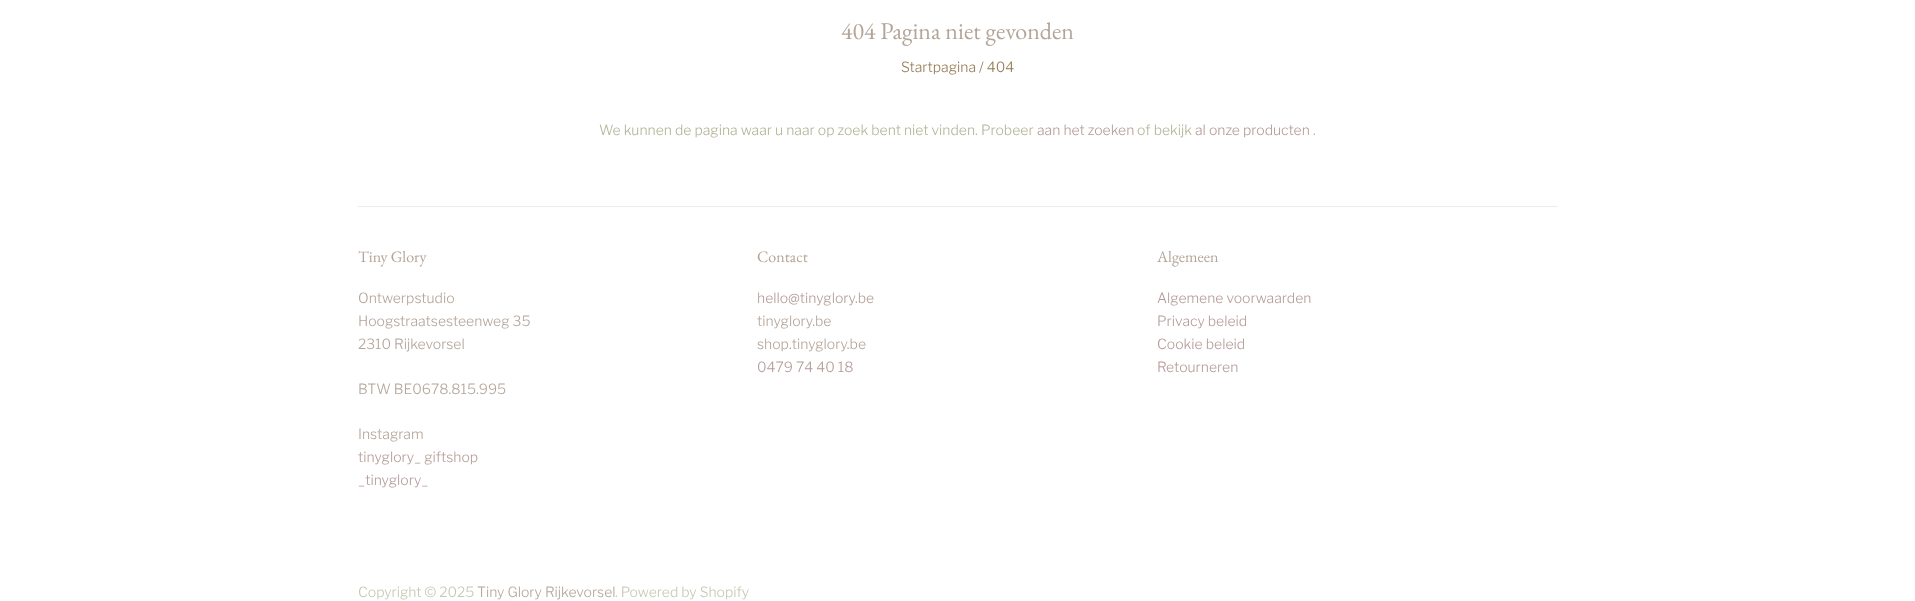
<!DOCTYPE html>
<meta charset="utf-8">
<style>body { margin: 0 } canvas { display: block }</style>
<canvas id="canvas" width="1915" height="601"></canvas>
<script type="module">
  const canvas = document.getElementById("canvas");
  const g = canvas.getContext("2d");
  g.miterLimit = 4;
  g.fontKerning = "normal";
  function drawText(s, x, y, [font, color]) {
    g.font = font;
    g.fillStyle = color;
    g.fillText(s, x, y);
  }
  function fillBox(x, y, w, h, color) {
    g.fillStyle = color;
    g.fillRect(x, y, w, h);
  }

  const s1 = ["24px EB Garamond", "#B4A599"];
  const s2 = ["300 14px Libre Franklin", "#937A54"];
  const s3 = ["300 14px Libre Franklin", "#B4B499"];
  const s4 = ["300 14px Libre Franklin", "#B49C99"];
  const s5 = ["16px EB Garamond", "#B4A599"];
  const s6 = ["300 14px Libre Franklin", "#B4A599"];
  const s7 = ["300 14px Libre Franklin", "#C7C7B3"];

  fillBox(0, 0, 1915, 601, "#FFFFFF");
  drawText("404 Pagina niet gevonden", 841, 39, s1);
  drawText("Startpagina / 404", 901, 72, s2);
  drawText("We kunnen de pagina waar u naar op zoek bent niet vinden. Probeer", 599, 135, s3);
  drawText("aan het zoeken", 1037, 135, s4);
  drawText("of bekijk", 1137, 135, s3);
  drawText("al onze producten", 1195, 135, s4);
  drawText(".", 1313, 135, s3);
  fillBox(358, 206, 1200, 1, "#EDECEA");
  drawText("Tiny Glory", 358, 262, s5);
  drawText("Ontwerpstudio", 358, 303, s6);
  drawText("Hoogstraatsesteenweg 35", 358, 326, s6);
  drawText("2310 Rijkevorsel", 358, 349, s6);
  drawText("BTW BE0678.815.995", 358, 394, s6);
  drawText("Instagram", 358, 439, s6);
  drawText("tinyglory_ giftshop", 358, 462, s4);
  drawText("_tinyglory_", 358, 485, s4);
  drawText("Contact", 757, 262, s5);
  drawText("hello@tinyglory.be", 757, 303, s4);
  drawText("tinyglory.be", 757, 326, s6);
  drawText("shop.tinyglory.be", 757, 349, s6);
  drawText("0479 74 40 18", 757, 372, s4);
  drawText("Algemeen", 1157, 262, s5);
  drawText("Algemene voorwaarden", 1157, 303, s4);
  drawText("Privacy beleid", 1157, 326, s4);
  drawText("Cookie beleid", 1157, 349, s4);
  drawText("Retourneren", 1157, 372, s4);
  drawText("Copyright © 2025", 358, 597, s7);
  drawText("Tiny Glory Rijkevorsel", 477, 597, s6);
  drawText(". Powered by Shopify", 615, 597, s7);
</script>
